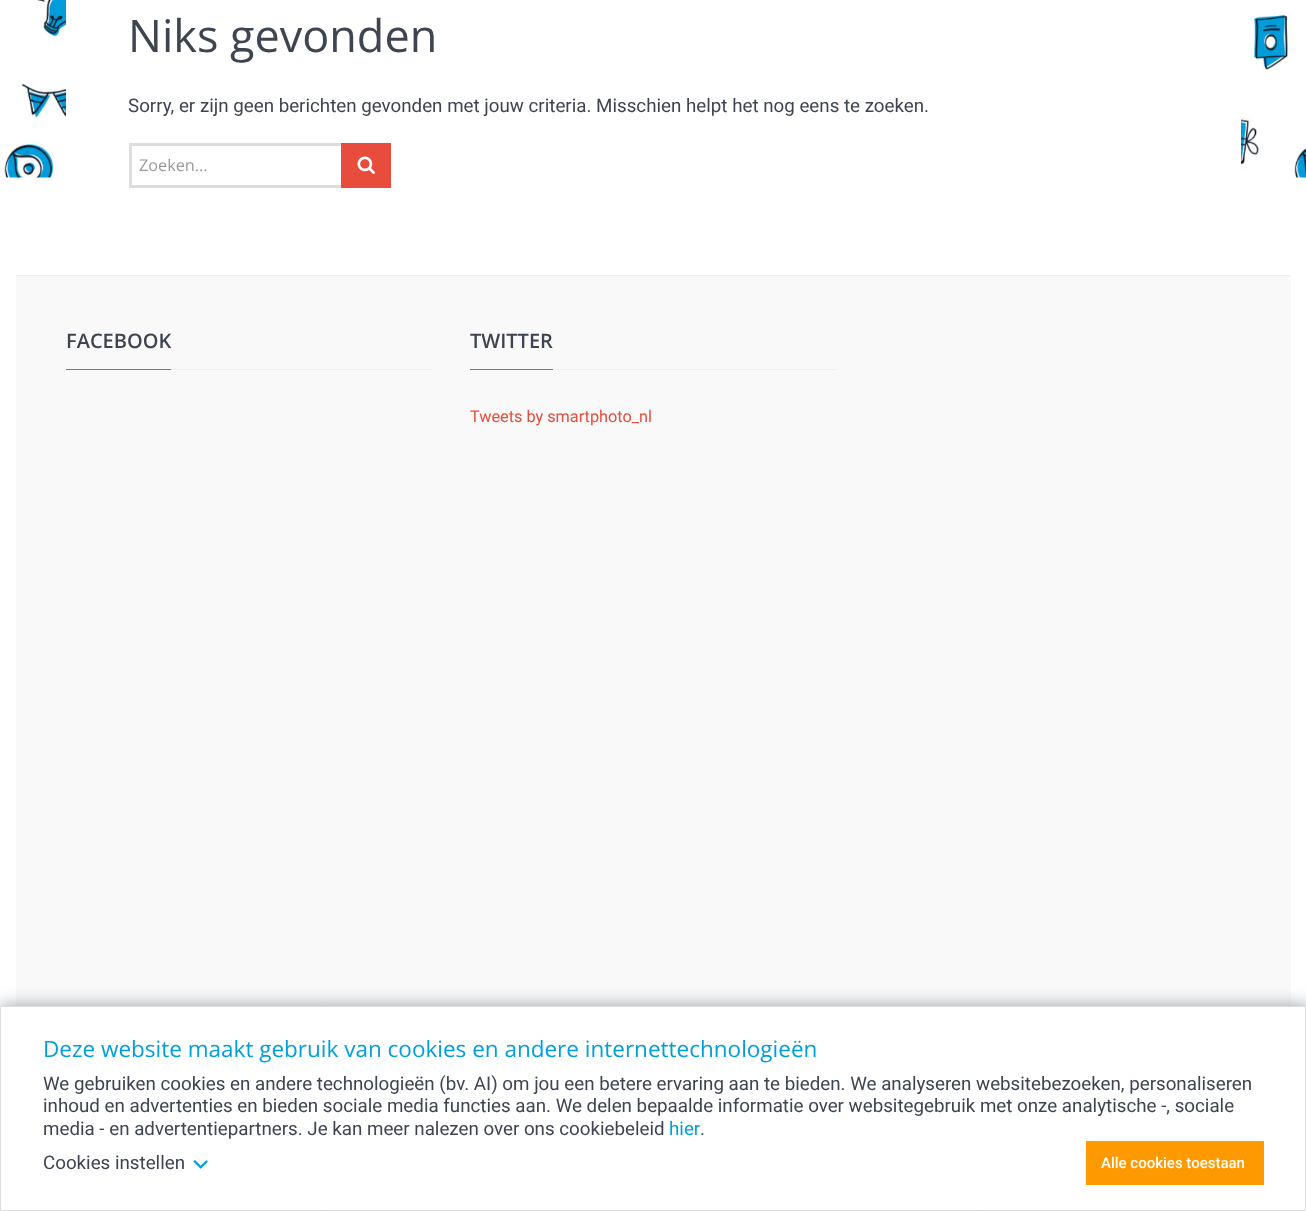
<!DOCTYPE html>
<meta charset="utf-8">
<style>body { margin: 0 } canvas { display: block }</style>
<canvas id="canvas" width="1306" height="1211"></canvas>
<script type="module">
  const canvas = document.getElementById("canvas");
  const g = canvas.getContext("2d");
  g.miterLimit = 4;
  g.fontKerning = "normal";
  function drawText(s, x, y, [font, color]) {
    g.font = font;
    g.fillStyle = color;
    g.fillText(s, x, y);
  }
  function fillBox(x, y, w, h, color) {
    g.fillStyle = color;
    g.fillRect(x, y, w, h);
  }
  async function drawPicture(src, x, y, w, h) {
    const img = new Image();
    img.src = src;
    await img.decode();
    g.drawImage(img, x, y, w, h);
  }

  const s1 = ["45px Open Sans", "#3E4551"];
  const s2 = ["18.75px Roboto", "#3E4551"];
  const s3 = ["16.25px Open Sans", "#999999"];
  const s4 = ["600 20px Open Sans", "#3E4551"];
  const s5 = ["16.25px Roboto", "#E74C3C"];
  const s6 = ["22.5px Open Sans", "#009FDC"];
  const s7 = ["18.75px Roboto", "#009FDC"];
  const s8 = ["500 15px Roboto", "#FFFFFF"];

  fillBox(0, 0, 1306, 1211, "#FFFFFF");
  await drawPicture("pic1.png", 4, 0, 1302, 178);
  fillBox(66, 0, 1175, 178, "#FFFFFF");
  drawText("Niks gevonden", 128, 52, s1);
  drawText("Sorry, er zijn geen berichten gevonden met jouw criteria. Misschien helpt het nog eens te zoeken.", 128, 112, s2);
  g.strokeStyle = "#DDDDDD";
  g.lineWidth = 3;
  g.strokeRect(130.5, 144.5, 259, 42);
  drawText("Zoeken...", 139, 171, s3);
  fillBox(341, 143, 50, 45, "#E74C3C");
  await drawPicture("pic2.png", 357, 156, 18, 18);
  fillBox(16, 276, 1275, 730, "#F9F9F9");
  fillBox(16, 275, 1275, 1, "#EEEEEE");
  fillBox(171, 369, 262, 1, "#EEEEEE");
  fillBox(66, 369, 105, 1, "#E74C3C");
  drawText("FACEBOOK", 66, 348, s4);
  fillBox(553, 369, 283, 1, "#EEEEEE");
  fillBox(470, 369, 83, 1, "#E74C3C");
  drawText("TWITTER", 470, 348, s4);
  drawText("Tweets by smartphoto_nl", 470, 422, s5);
  g.fillStyle = "#999DA3";
  g.filter = "blur(9px)";
  g.beginPath();
  g.rect(0, 1006, 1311, 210);
  g.fill();
  g.filter = "none";
  g.fillStyle = "#FFFFFF";
  g.beginPath();
  g.rect(0.5, 1006.5, 1305, 204);
  g.fill();
  g.lineWidth = 1;
  g.stroke();
  drawText("Deze website maakt gebruik van cookies en andere internettechnologieën", 43, 1057, s6);
  drawText("We gebruiken cookies en andere technologieën (bv. AI) om jou een betere ervaring aan te bieden. We analyseren websitebezoeken, personaliseren", 43, 1090, s2);
  drawText("inhoud en advertenties en bieden sociale media functies aan. We delen bepaalde informatie over websitegebruik met onze analytische -, sociale", 43, 1112, s2);
  drawText("media - en advertentiepartners. Je kan meer nalezen over ons cookiebeleid", 43, 1135, s2);
  drawText("hier", 669, 1135, s7);
  drawText(".", 700, 1135, s2);
  drawText("Cookies instellen", 43, 1169, s2);
  await drawPicture("pic3.png", 193, 1160, 15, 9);
  fillBox(1086, 1141, 178, 44, "#FF9900");
  drawText("Alle cookies toestaan", 1101, 1168, s8);
</script>
